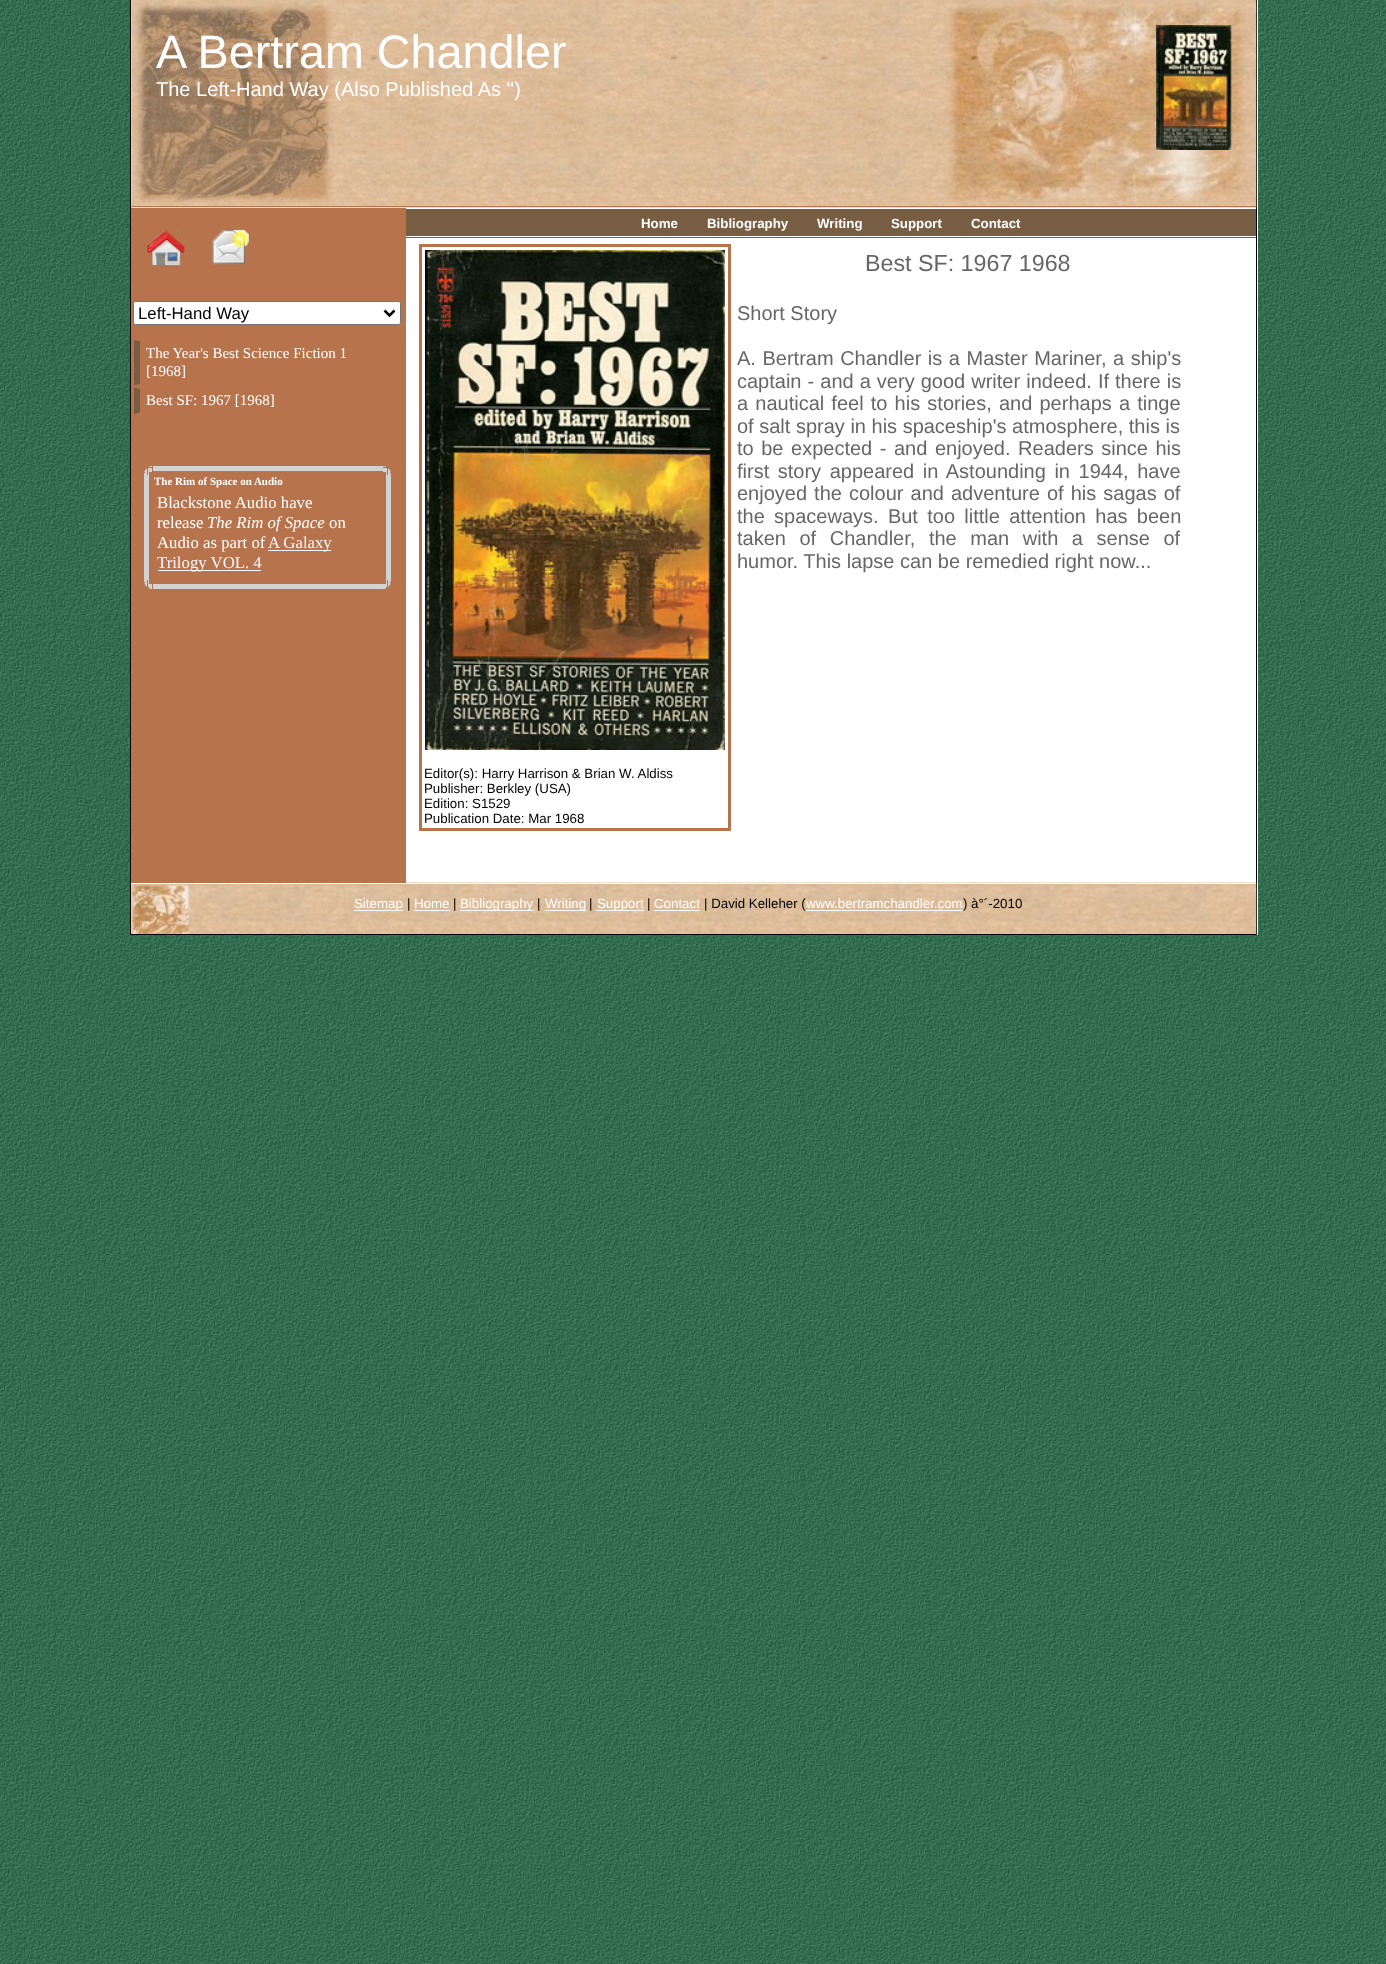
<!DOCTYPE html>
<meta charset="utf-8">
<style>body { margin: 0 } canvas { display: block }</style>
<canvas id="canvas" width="1386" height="1964"></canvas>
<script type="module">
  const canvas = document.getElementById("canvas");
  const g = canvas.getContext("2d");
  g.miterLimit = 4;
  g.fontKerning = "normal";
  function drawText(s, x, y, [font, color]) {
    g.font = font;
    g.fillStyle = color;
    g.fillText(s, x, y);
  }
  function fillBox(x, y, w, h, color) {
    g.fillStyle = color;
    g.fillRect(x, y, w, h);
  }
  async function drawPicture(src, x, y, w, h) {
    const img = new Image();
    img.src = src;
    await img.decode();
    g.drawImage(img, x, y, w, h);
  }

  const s1 = ["46.75px Liberation Sans", "#FFFFFF"];
  const s2 = ["20px Liberation Sans", "#FFFFFF"];
  const s3 = ["bold 13.3px Liberation Sans", "#FFFFFF"];
  const s4 = ["16.75px Liberation Sans", "#000000"];
  const s5 = ["15px Liberation Serif", "#FFFFFF"];
  const s6 = ["bold 11px Liberation Serif", "#FFFFFF"];
  const s7 = ["16.75px Liberation Serif", "#FFFFFF"];
  const s8 = ["italic 16.75px Liberation Serif", "#FFFFFF"];
  const s9 = ["16.75px Liberation Serif", "#F8F8FF"];
  const s10 = ["23.25px Liberation Sans", "#666666"];
  const s11 = ["20px Liberation Sans", "#666666"];
  const s12 = ["13.3px Liberation Sans", "#000000"];
  const s13 = ["13.3px Liberation Sans", "#FFFFFF"];

  fillBox(0, 0, 1386, 1964, "#FFFFFF");
  await drawPicture("pic1.png", 0, 0, 1386, 1964);
  fillBox(131, 0, 1127, 935, "#FFFFFF");
  fillBox(1256, 0, 1, 935, "#000000");
  fillBox(130, 0, 1, 935, "#000000");
  await drawPicture("pic2.png", 131, 0, 1126, 208);
  fillBox(131, 206, 1125, 1, "#B7734B");
  drawText("A Bertram Chandler", 156, 68, s1);
  await drawPicture("pic3.png", 1156, 25, 76, 125);
  drawText("The Left-Hand Way (Also Published As '')", 156, 96, s2);
  fillBox(406, 209, 850, 29, "#775D42");
  fillBox(406, 236, 850, 1, "#FFFFFF");
  drawText("Home", 641, 228, s3);
  drawText("Bibliography", 707, 228, s3);
  drawText("Writing", 817, 228, s3);
  drawText("Support", 891, 228, s3);
  drawText("Contact", 971, 228, s3);
  await drawPicture("pic7.png", 131, 882, 1126, 53);
  fillBox(131, 208, 275, 675, "#B7734B");
  await drawPicture("pic4.png", 147, 229, 39, 38);
  await drawPicture("pic5.png", 212, 229, 37, 36);
  g.fillStyle = "#FFFFFF";
  g.beginPath();
  g.roundRect(133.5, 301.5, 267, 23, 2);
  g.fill();
  g.strokeStyle = "#767676";
  g.stroke();
  g.beginPath();
  g.moveTo(384.5, 310.5);
  g.lineTo(389.5, 315.5);
  g.lineTo(394.5, 310.5);
  g.strokeStyle = "#000000";
  g.lineWidth = 2.5;
  g.stroke();
  drawText("Left-Hand Way", 138, 319, s4);
  g.fillStyle = "#775D42";
  g.beginPath();
  g.moveTo(134, 385);
  g.lineTo(134, 340);
  g.lineTo(140, 341);
  g.lineTo(140, 384);
  g.closePath();
  g.fill();
  drawText("The Year's Best Science Fiction 1", 146, 358, s5);
  drawText("[1968]", 146, 376, s5);
  g.fillStyle = "#775D42";
  g.beginPath();
  g.moveTo(134, 414);
  g.lineTo(134, 387.5);
  g.lineTo(140, 389);
  g.lineTo(140, 412.5);
  g.closePath();
  g.fill();
  drawText("Best SF: 1967 [1968]", 146, 405, s5);
  fillBox(386, 475, 5, 105, "#D3D3D3");
  fillBox(144, 475, 5, 105, "#D3D3D3");
  fillBox(148, 466, 1, 1, "#BA7C58");
  fillBox(149, 466, 1, 1, "#C6A591");
  fillBox(150, 466, 1, 1, "#CEC2BB");
  fillBox(151, 466, 1, 1, "#D2D0CE");
  fillBox(145, 469, 1, 1, "#C09378");
  fillBox(146, 468, 1, 1, "#C09378");
  fillBox(148, 468, 1, 1, "#D2CECC");
  fillBox(149, 468, 3, 4, "#D3D3D3");
  fillBox(144, 470, 1, 1, "#BA7C58");
  fillBox(145, 470, 1, 1, "#D2CECC");
  fillBox(146, 469, 1, 1, "#D3D3D2");
  fillBox(148, 469, 1, 6, "#D3D3D3");
  fillBox(144, 471, 1, 1, "#C6A591");
  fillBox(145, 471, 1, 4, "#D3D3D3");
  fillBox(146, 470, 1, 5, "#D3D3D3");
  fillBox(144, 473, 1, 1, "#CEC2BB");
  fillBox(144, 474, 1, 1, "#D2D0CE");
  fillBox(153, 466, 230, 5, "#D3D3D3");
  fillBox(383, 466, 1, 1, "#D2D0CE");
  fillBox(384, 466, 1, 1, "#CEC2BB");
  fillBox(385, 466, 1, 1, "#C6A591");
  fillBox(386, 466, 1, 1, "#BA7C58");
  fillBox(383, 468, 3, 4, "#D3D3D3");
  fillBox(386, 468, 1, 1, "#D2CECC");
  fillBox(388, 468, 1, 1, "#C09378");
  fillBox(386, 469, 1, 6, "#D3D3D3");
  fillBox(388, 469, 1, 1, "#D3D3D2");
  fillBox(389, 469, 1, 1, "#C09378");
  fillBox(388, 470, 1, 5, "#D3D3D3");
  fillBox(389, 470, 1, 1, "#D2CECC");
  fillBox(390, 470, 1, 1, "#BA7C58");
  fillBox(389, 471, 1, 4, "#D3D3D3");
  fillBox(390, 471, 1, 1, "#C6A591");
  fillBox(390, 473, 1, 1, "#CEC2BB");
  fillBox(390, 474, 1, 1, "#D2D0CE");
  drawText("The Rim of Space on Audio", 154, 485, s6);
  drawText("Blackstone Audio have", 157, 508, s7);
  drawText("release", 157, 528, s7);
  drawText("The Rim of Space", 207, 528, s8);
  drawText("on", 329, 528, s7);
  drawText("Audio as part of", 157, 548, s7);
  fillBox(268, 550, 63, 1, "#F8F8FF");
  drawText("A Galaxy", 268, 548, s9);
  fillBox(158, 570, 103, 1, "#F8F8FF");
  drawText("Trilogy VOL. 4", 157, 568, s9);
  fillBox(144, 580, 1, 1, "#D2D0CE");
  fillBox(145, 580, 1, 4, "#D3D3D3");
  fillBox(146, 580, 1, 5, "#D3D3D3");
  fillBox(148, 580, 1, 6, "#D3D3D3");
  fillBox(144, 581, 1, 1, "#CEC2BB");
  fillBox(144, 583, 1, 1, "#C6A591");
  fillBox(144, 584, 1, 1, "#BA7C58");
  fillBox(145, 584, 1, 1, "#D2CECC");
  fillBox(149, 584, 3, 4, "#D3D3D3");
  fillBox(145, 585, 1, 1, "#C09378");
  fillBox(146, 585, 1, 1, "#D3D3D2");
  fillBox(146, 586, 1, 1, "#C09378");
  fillBox(148, 586, 1, 1, "#D2CECC");
  fillBox(148, 588, 1, 1, "#BA7C58");
  fillBox(149, 588, 1, 1, "#C6A591");
  fillBox(150, 588, 1, 1, "#CEC2BB");
  fillBox(151, 588, 1, 1, "#D2D0CE");
  fillBox(153, 584, 230, 5, "#D3D3D3");
  fillBox(386, 580, 1, 6, "#D3D3D3");
  fillBox(388, 580, 1, 5, "#D3D3D3");
  fillBox(389, 580, 1, 4, "#D3D3D3");
  fillBox(390, 580, 1, 1, "#D2D0CE");
  fillBox(390, 581, 1, 1, "#CEC2BB");
  fillBox(390, 583, 1, 1, "#C6A591");
  fillBox(383, 584, 3, 4, "#D3D3D3");
  fillBox(389, 584, 1, 1, "#D2CECC");
  fillBox(390, 584, 1, 1, "#BA7C58");
  fillBox(388, 585, 1, 1, "#D3D3D2");
  fillBox(389, 585, 1, 1, "#C09378");
  fillBox(386, 586, 1, 1, "#D2CECC");
  fillBox(388, 586, 1, 1, "#C09378");
  fillBox(383, 588, 1, 1, "#D2D0CE");
  fillBox(384, 588, 1, 1, "#CEC2BB");
  fillBox(385, 588, 1, 1, "#C6A591");
  fillBox(386, 588, 1, 1, "#BA7C58");
  drawText("Best SF: 1967 1968", 865, 271, s10);
  drawText("Short Story", 737, 320, s11);
  g.wordSpacing = "1px";
  drawText("A. Bertram Chandler is a Master Mariner, a ship's", 737, 365, s11);
  g.wordSpacing = "0.5px";
  drawText("captain - and a very good writer indeed. If there is", 737, 388, s11);
  g.wordSpacing = "1.6px";
  drawText("a nautical feel to his stories, and perhaps a tinge", 737, 410, s11);
  g.wordSpacing = "0px";
  drawText("of salt spray in his spaceship's atmosphere, this is", 737, 433, s11);
  g.wordSpacing = "2px";
  drawText("to be expected - and enjoyed. Readers since his", 737, 455, s11);
  g.wordSpacing = "3px";
  drawText("first story appeared in Astounding in 1944, have", 737, 478, s11);
  g.wordSpacing = "1.5px";
  drawText("enjoyed the colour and adventure of his sagas of", 737, 500, s11);
  g.wordSpacing = "3.75px";
  drawText("the spaceways. But too little attention has been", 737, 523, s11);
  g.wordSpacing = "8px";
  drawText("taken of Chandler, the man with a sense of", 737, 545, s11);
  g.wordSpacing = "0px";
  drawText("humor. This lapse can be remedied right now...", 737, 568, s11);
  g.strokeStyle = "#B7734B";
  g.lineWidth = 3;
  g.strokeRect(420.5, 245.5, 309, 584);
  await drawPicture("pic6.png", 425, 250, 300, 500);
  drawText("Editor(s): Harry Harrison & Brian W. Aldiss", 424, 778, s12);
  drawText("Publisher: Berkley (USA)", 424, 793, s12);
  drawText("Edition: S1529", 424, 808, s12);
  drawText("Publication Date: Mar 1968", 424, 823, s12);
  fillBox(131, 883, 1125, 1, "#FFFFFF");
  fillBox(131, 934, 1125, 1, "#000000");
  fillBox(354, 910, 49, 1, "#FFFFFF");
  drawText("Sitemap", 354, 908, s13);
  drawText("|", 407, 908, s12);
  drawText("Home", 414, 908, s13);
  fillBox(414, 910, 36, 1, "#FFFFFF");
  drawText("|", 453, 908, s12);
  fillBox(460, 910, 74, 1, "#FFFFFF");
  drawText("Bibliography", 460, 908, s13);
  drawText("|", 537, 908, s12);
  fillBox(545, 910, 41, 1, "#FFFFFF");
  drawText("Writing", 545, 908, s13);
  drawText("|", 589, 908, s12);
  fillBox(596, 910, 48, 1, "#FFFFFF");
  drawText("Support", 597, 908, s13);
  drawText("|", 647, 908, s12);
  drawText("Contact", 654, 908, s13);
  fillBox(654, 910, 46, 1, "#FFFFFF");
  drawText("| David Kelleher (", 704, 908, s12);
  drawText("www.bertramchandler.com", 806, 908, s13);
  fillBox(806, 910, 157, 1, "#FFFFFF");
  drawText(") à°´-2010", 963, 908, s12);
</script>
